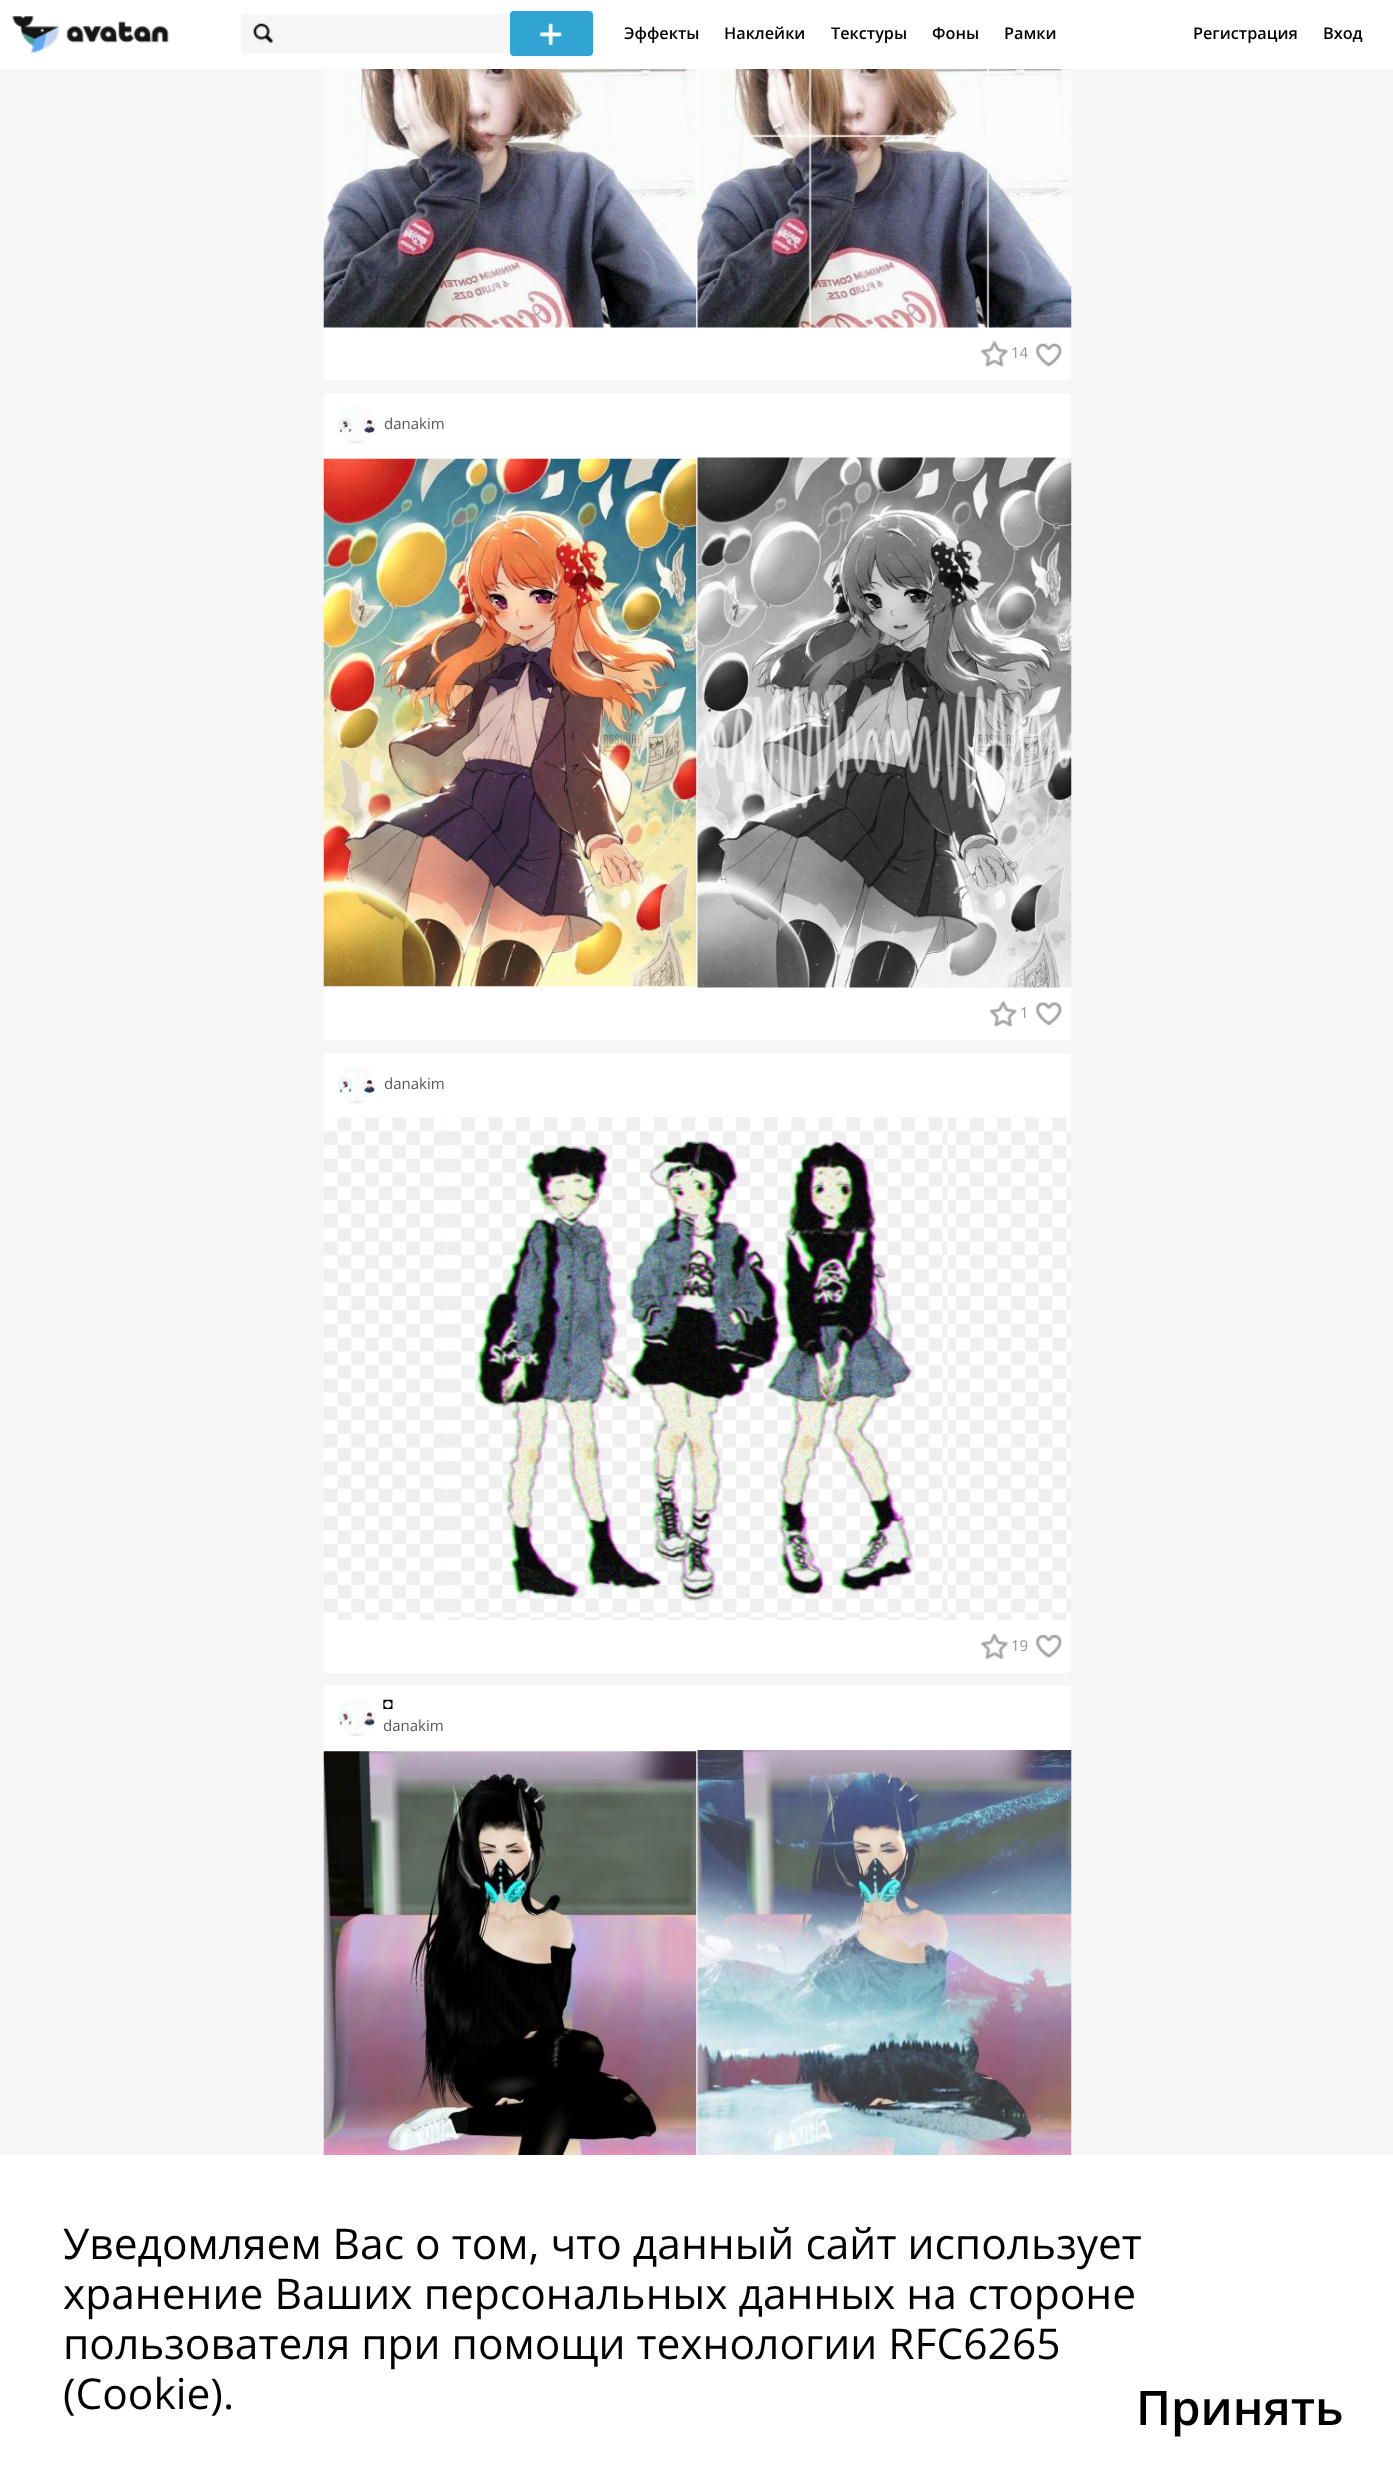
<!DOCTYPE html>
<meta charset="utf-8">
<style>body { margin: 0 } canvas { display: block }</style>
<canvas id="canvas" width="1393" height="2480"></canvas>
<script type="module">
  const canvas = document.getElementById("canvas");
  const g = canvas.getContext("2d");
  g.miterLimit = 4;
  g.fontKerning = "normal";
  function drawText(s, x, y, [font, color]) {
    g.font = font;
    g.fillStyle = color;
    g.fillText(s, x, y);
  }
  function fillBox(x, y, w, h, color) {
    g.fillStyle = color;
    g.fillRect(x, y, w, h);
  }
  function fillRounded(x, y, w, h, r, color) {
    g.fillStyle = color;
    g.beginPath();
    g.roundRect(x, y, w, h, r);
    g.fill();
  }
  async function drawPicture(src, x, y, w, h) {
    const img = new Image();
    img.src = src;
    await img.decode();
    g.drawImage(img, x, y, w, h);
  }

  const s1 = ["600 16.25px Open Sans", "#000000"];
  const s2 = ["15px Open Sans", "#959595"];
  const s3 = ["15px Open Sans", "#555555"];
  const s4 = ["16.25px Liberation Sans", "#000000"];
  const s5 = ["42.5px Open Sans", "#000000"];
  const s6 = ["600 47.5px Open Sans", "#000000"];

  fillBox(0, 0, 1393, 2480, "#F6F6F6");
  fillRounded(324, -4, 747, 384, 4, "#FFFFFF");
  await drawPicture("pic4.png", 323, 69, 374, 259);
  await drawPicture("pic5.png", 697, 69, 375, 259);
  g.fillStyle = "rgba(0, 0, 0, 0.3)";
  g.filter = "blur(0.5px)";
  g.beginPath();
  g.rect(0, 0, 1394, 69);
  g.fill();
  g.filter = "none";
  fillBox(0, 0, 1393, 69, "#FFFFFF");
  await drawPicture("pic1.png", 12, 16, 157, 37);
  fillRounded(241, 14, 290, 39, 4, "#F6F6F6");
  await drawPicture("pic2.png", 253, 23, 20, 20);
  fillRounded(510, 11, 83, 45, 4, "#30A5D4");
  await drawPicture("pic3.png", 539, 23, 23, 22);
  drawText("Эффекты", 624, 39, s1);
  drawText("Наклейки", 724, 39, s1);
  drawText("Текстуры", 831, 39, s1);
  drawText("Фоны", 932, 39, s1);
  drawText("Рамки", 1004, 39, s1);
  drawText("Регистрация", 1193, 39, s1);
  drawText("Вход", 1323, 39, s1);
  await drawPicture("pic6.png", 981, 341, 27, 26);
  drawText("14", 1011, 358, s2);
  await drawPicture("pic7.png", 1036, 343, 26, 24);
  fillRounded(324, 393, 747, 647, 4, "#FFFFFF");
  await drawPicture("pic8.png", 338, 406, 37, 38);
  drawText("danakim", 384, 429, s3);
  await drawPicture("pic9.png", 323, 458, 374, 529);
  await drawPicture("pic10.png", 697, 457, 375, 531);
  await drawPicture("pic11.png", 989, 1001, 28, 26);
  drawText("1", 1020, 1018, s2);
  await drawPicture("pic12.png", 1036, 1002, 26, 23);
  fillRounded(324, 1053, 747, 620, 4, "#FFFFFF");
  await drawPicture("pic13.png", 338, 1066, 37, 38);
  drawText("danakim", 384, 1089, s3);
  await drawPicture("pic14.png", 324, 1117, 747, 503);
  await drawPicture("pic15.png", 447, 1117, 501, 501);
  await drawPicture("pic16.png", 981, 1633, 27, 26);
  drawText("19", 1011, 1651, s2);
  await drawPicture("pic17.png", 1036, 1635, 26, 23);
  fillRounded(324, 1685, 747, 631, 4, "#FFFFFF");
  await drawPicture("pic18.png", 338, 1699, 37, 37);
  drawText("◘", 383, 1709, s4);
  drawText("danakim", 383, 1731, s3);
  await drawPicture("pic19.png", 323, 1751, 374, 404);
  await drawPicture("pic20.png", 697, 1750, 375, 405);
  fillBox(0, 2155, 1393, 325, "#FFFFFF");
  drawText("Уведомляем Вас о том, что данный сайт использует", 63, 2259, s5);
  drawText("хранение Ваших персональных данных на стороне", 63, 2309, s5);
  drawText("пользователя при помощи технологии RFC6265", 63, 2359, s5);
  drawText("(Cookie).", 63, 2409, s5);
  drawText("Принять", 1136, 2425, s6);
</script>
